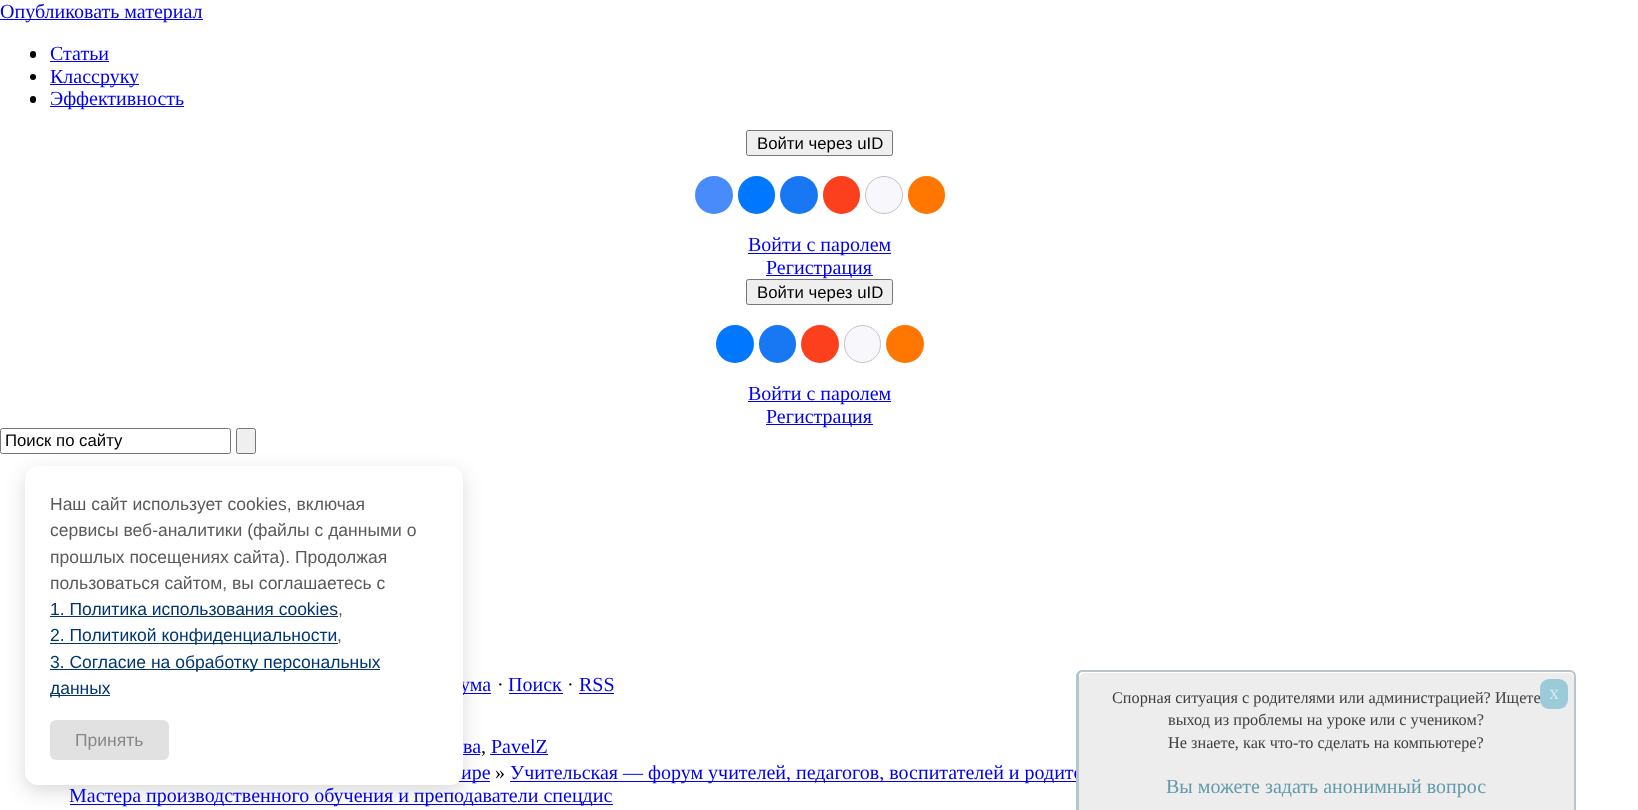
<!DOCTYPE html>
<meta charset="utf-8">
<style>body { margin: 0 } canvas { display: block }</style>
<canvas id="canvas" width="1638" height="810"></canvas>
<script type="module">
  const canvas = document.getElementById("canvas");
  const g = canvas.getContext("2d");
  g.miterLimit = 4;
  g.fontKerning = "normal";
  function drawText(s, x, y, [font, color]) {
    g.font = font;
    g.fillStyle = color;
    g.fillText(s, x, y);
  }
  function fillBox(x, y, w, h, color) {
    g.fillStyle = color;
    g.fillRect(x, y, w, h);
  }
  function fillRounded(x, y, w, h, r, color) {
    g.fillStyle = color;
    g.beginPath();
    g.roundRect(x, y, w, h, r);
    g.fill();
  }

  const s1 = ["20px Liberation Serif", "#0000EE"];
  const s2 = ["16.75px Liberation Sans", "#000000"];
  const s3 = ["17.5px Liberation Sans", "#5A5A5A"];
  const s4 = ["17.5px Liberation Sans", "#01356F"];
  const s5 = ["17.5px Liberation Sans", "#878787"];
  const s6 = ["16.25px Liberation Serif", "#3F3F3F"];
  const s7 = ["20px Liberation Serif", "#CEEAF3"];
  const s8 = ["20px Liberation Serif", "#619AAB"];
  const s9 = ["20px Liberation Serif", "#000000"];

  fillBox(0, 0, 1638, 810, "#FFFFFF");
  fillBox(0, 19, 203, 1, "#0000EE");
  drawText("Опубликовать материал", 0, 18, s1);
  fillRounded(30, 51, 6, 7, 3, "#000000");
  drawText("Статьи", 50, 60, s1);
  fillBox(50, 61, 59, 1, "#0000EE");
  g.fillStyle = "#000000";
  g.beginPath();
  g.arc(33, 77, 3, 0, Math.PI * 2);
  g.fill();
  fillBox(50, 84, 89, 1, "#0000EE");
  drawText("Классруку", 50, 83, s1);
  fillRounded(30, 96, 6, 7, 3, "#000000");
  fillBox(50, 106, 134, 1, "#0000EE");
  drawText("Эффективность", 50, 105, s1);
  g.fillStyle = "#EFEFEF";
  g.beginPath();
  g.roundRect(746.5, 130.5, 146, 25, 2);
  g.fill();
  g.strokeStyle = "#767676";
  g.stroke();
  drawText("Войти через uID", 757, 149, s2);
  g.fillStyle = "#498BFA";
  g.beginPath();
  g.arc(714, 195, 19, 0, Math.PI * 2);
  g.fill();
  fillRounded(738, 176, 37, 38, 18.5, "#0077FF");
  g.fillStyle = "#1877F2";
  g.beginPath();
  g.arc(799, 195, 19, 0, Math.PI * 2);
  g.fill();
  fillRounded(823, 176, 37, 38, 18.5, "#FC3F1D");
  g.fillStyle = "#F8F8FC";
  g.beginPath();
  g.arc(884, 195, 18.5, 0, Math.PI * 2);
  g.fill();
  g.strokeStyle = "#C4C4C4";
  g.stroke();
  fillRounded(908, 176, 37, 38, 18.5, "#FF7700");
  fillBox(748, 253, 143, 1, "#0000EE");
  drawText("Войти с паролем", 748, 251, s1);
  fillBox(766, 275, 107, 1, "#0000EE");
  drawText("Регистрация", 766, 274, s1);
  g.fillStyle = "#EFEFEF";
  g.beginPath();
  g.roundRect(746.5, 279.5, 146, 25, 2);
  g.fill();
  g.strokeStyle = "#767676";
  g.stroke();
  drawText("Войти через uID", 757, 298, s2);
  g.fillStyle = "#0077FF";
  g.beginPath();
  g.arc(735, 344, 19, 0, Math.PI * 2);
  g.fill();
  fillRounded(759, 325, 37, 38, 18.5, "#1877F2");
  g.fillStyle = "#FC3F1D";
  g.beginPath();
  g.arc(820, 344, 19, 0, Math.PI * 2);
  g.fill();
  g.fillStyle = "#F8F8FC";
  g.beginPath();
  g.roundRect(844.5, 325.5, 36, 37, 18);
  g.fill();
  g.strokeStyle = "#C4C4C4";
  g.stroke();
  g.fillStyle = "#FF7700";
  g.beginPath();
  g.arc(905, 344, 19, 0, Math.PI * 2);
  g.fill();
  fillBox(748, 401, 143, 1, "#0000EE");
  drawText("Войти с паролем", 748, 400, s1);
  fillBox(766, 424, 107, 1, "#0000EE");
  drawText("Регистрация", 766, 423, s1);
  g.beginPath();
  g.roundRect(0.5, 428.5, 230, 25, 2);
  g.strokeStyle = "#767676";
  g.stroke();
  drawText("Поиск по сайту", 5, 446, s2);
  g.fillStyle = "#EFEFEF";
  g.beginPath();
  g.roundRect(236.5, 428.5, 19, 25, 2);
  g.fill();
  g.stroke();
  fillBox(463, 693, 28, 1, "#0000EE");
  fillBox(463, 754, 17, 1, "#0000EE");
  fillBox(490, 754, 58, 1, "#0000EE");
  fillBox(458, 781, 32, 1, "#0000EE");
  fillBox(70, 804, 543, 1, "#0000EE");
  g.fillStyle = "rgba(0, 0, 0, 0.15)";
  g.filter = "blur(9.5px)";
  g.beginPath();
  g.roundRect(25, 473, 438, 318, 13);
  g.fill();
  g.filter = "none";
  drawText("ума", 460, 691, s1);
  drawText("ва", 463, 753, s1);
  drawText("ире", 461, 779, s1);
  fillRounded(25, 466, 438, 319, 13, "#FFFFFF");
  drawText("Наш сайт использует cookies, включая", 50, 510, s3);
  drawText("сервисы веб-аналитики (файлы с данными о", 50, 536, s3);
  drawText("прошлых посещениях сайта). Продолжая", 50, 563, s3);
  drawText("пользоваться сайтом, вы соглашаетесь с", 50, 589, s3);
  drawText("1. Политика использования cookies", 50, 615, s4);
  fillBox(50, 616, 288, 1, "#01356F");
  drawText(",", 338, 615, s3);
  fillBox(50, 643, 288, 1, "#01356F");
  drawText("2. Политикой конфиденциальности", 50, 641, s4);
  drawText(",", 337, 641, s3);
  fillBox(50, 669, 330, 1, "#01356F");
  drawText("3. Согласие на обработку персональных", 50, 668, s4);
  fillBox(50, 695, 60, 1, "#01356F");
  drawText("данных", 50, 694, s4);
  fillRounded(50, 720, 119, 40, 6, "#E1E1E1");
  drawText("Принять", 75, 746, s5);
  fillBox(510, 781, 566, 1, "#0000EE");
  drawText("Учительская — форум учителей, педагогов, воспитателей и родите", 510, 779, s1);
  g.fillStyle = "#B6C5CE";
  g.beginPath();
  g.moveTo(1082, 670);
  g.lineTo(1570, 670);
  g.bezierCurveTo(1573, 670, 1576, 673, 1576, 676);
  g.lineTo(1576, 810);
  g.lineTo(1076, 810);
  g.lineTo(1076, 676);
  g.bezierCurveTo(1076, 673, 1079, 670, 1082, 670);
  g.closePath();
  g.moveTo(1082, 672);
  g.lineTo(1570, 672);
  g.bezierCurveTo(1572, 672, 1574, 674, 1574, 676);
  g.lineTo(1574, 810);
  g.lineTo(1079, 810);
  g.lineTo(1079, 676);
  g.bezierCurveTo(1079, 674, 1080, 672, 1082, 672);
  g.closePath();
  g.fill("evenodd");
  g.fillStyle = "#EDEDED";
  g.beginPath();
  g.roundRect(1079, 673, 495, 137, [6, 6, 0, 0]);
  g.fill();
  drawText("Спорная ситуация с родителями или администрацией? Ищете", 1112, 703, s6);
  fillRounded(1540, 679, 28, 30, 9, "#9BCAD9");
  drawText("х", 1549, 699, s7);
  drawText("выход из проблемы на уроке или с учеником?", 1168, 725, s6);
  drawText("Не знаете, как что-то сделать на компьютере?", 1168, 748, s6);
  drawText("Вы можете задать анонимный вопрос", 1166, 793, s8);
  drawText("·", 497, 691, s9);
  drawText("Поиск", 508, 691, s1);
  fillBox(509, 693, 54, 1, "#0000EE");
  drawText("·", 567, 691, s9);
  drawText("RSS", 579, 691, s1);
  fillBox(579, 693, 35, 1, "#0000EE");
  drawText(",", 481, 753, s9);
  drawText("PavelZ", 491, 753, s1);
  drawText("»", 495, 779, s9);
  drawText("Мастера производственного обучения и преподаватели спецдис", 69, 802, s1);
</script>
